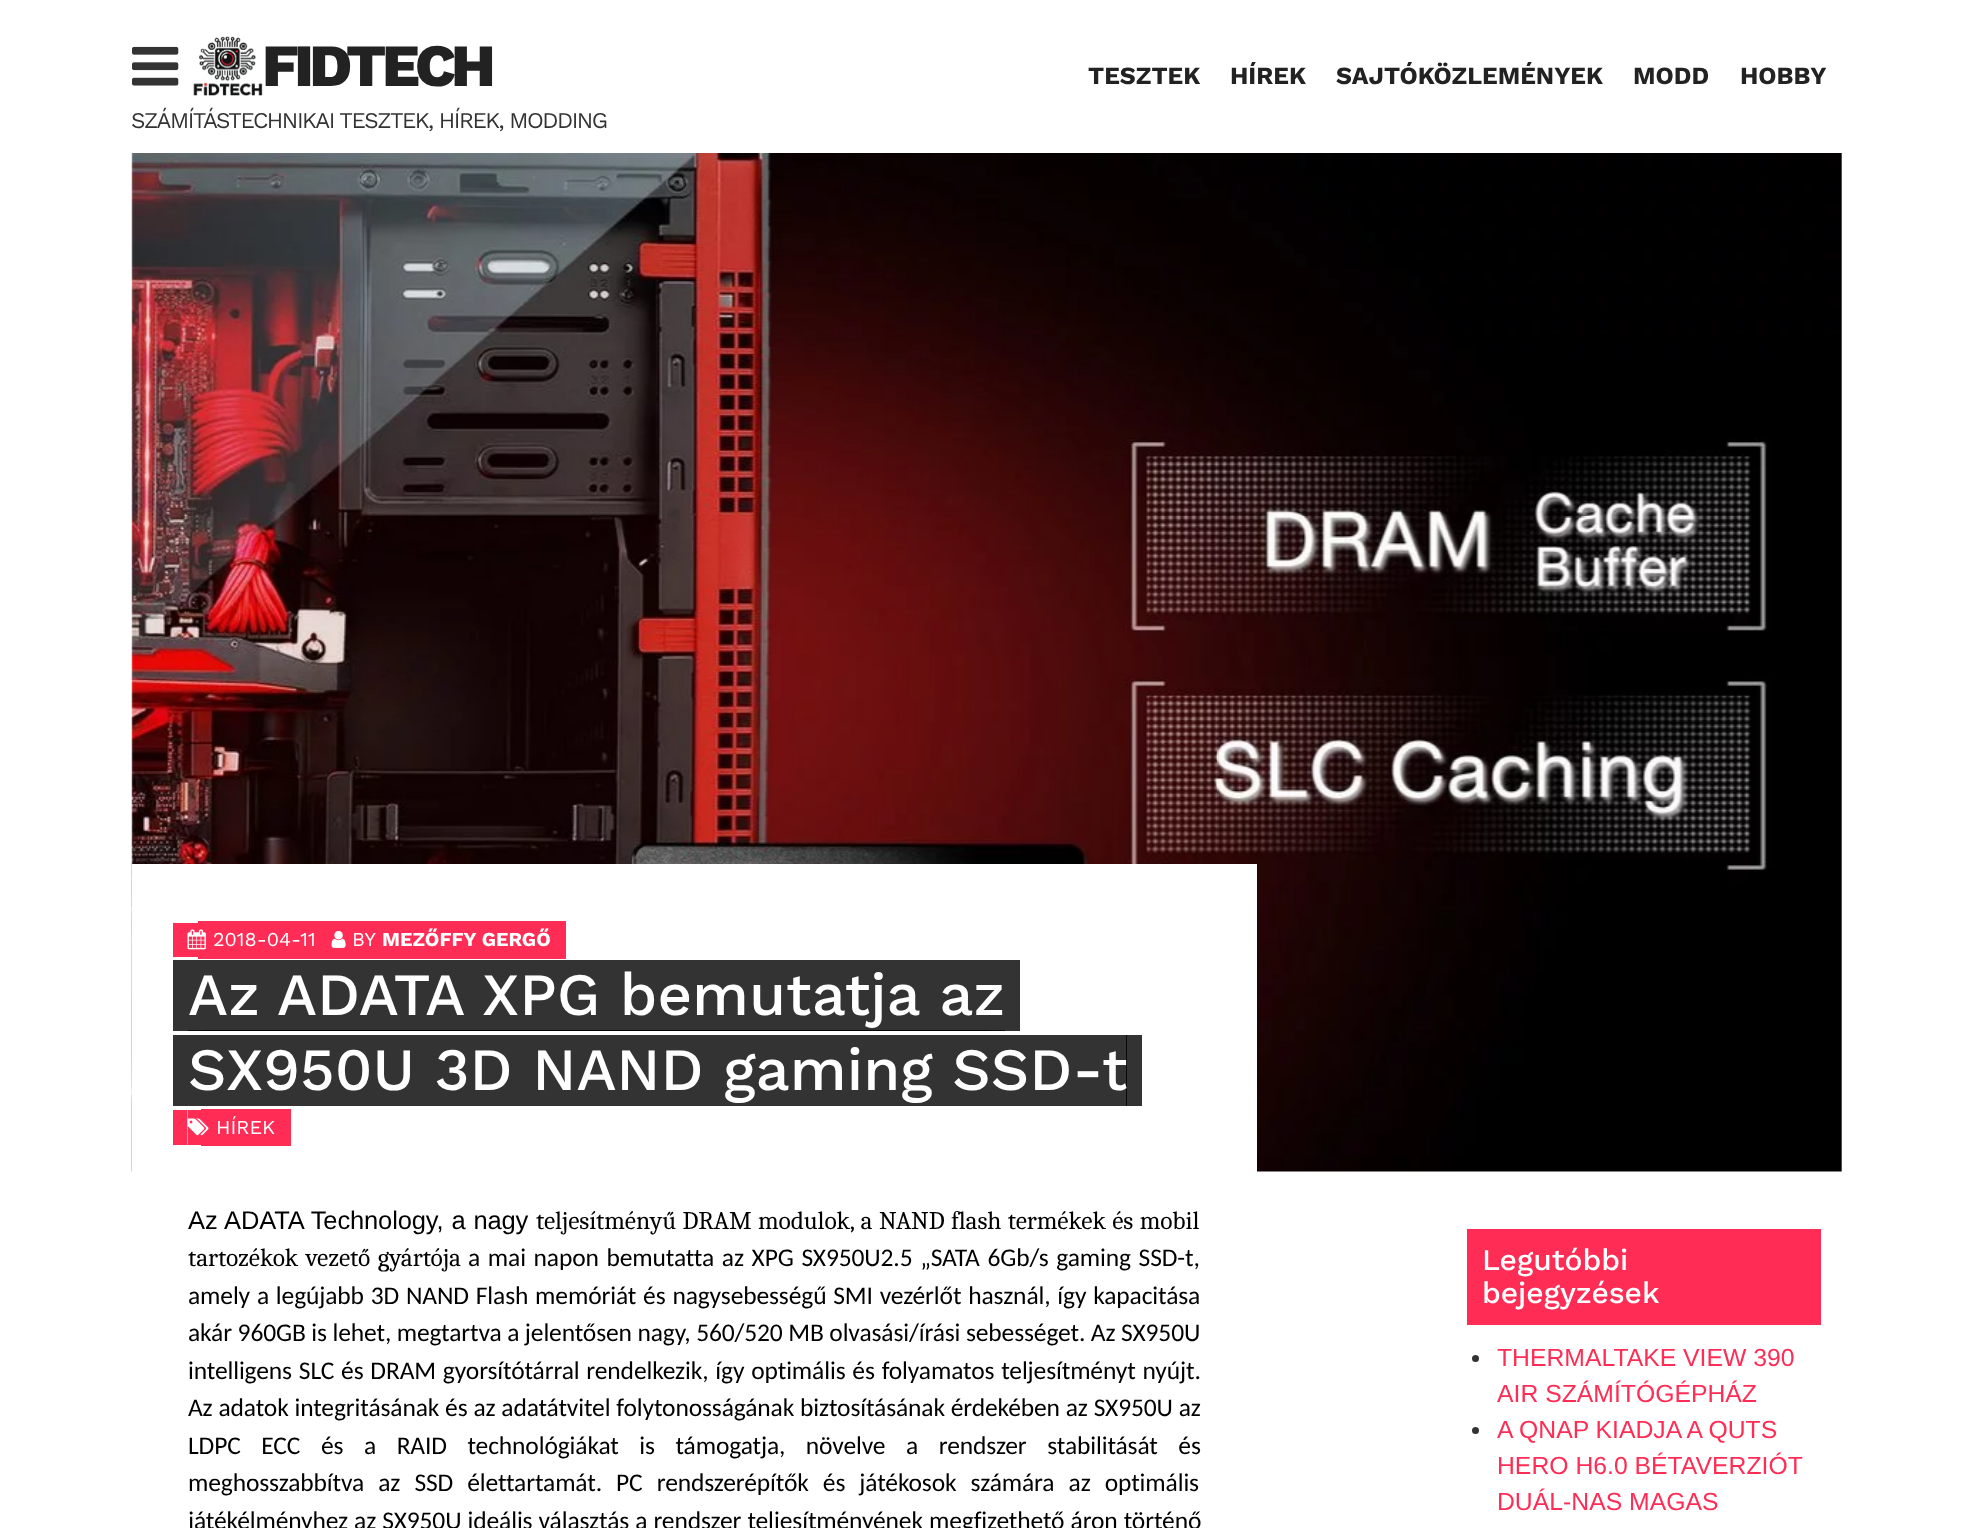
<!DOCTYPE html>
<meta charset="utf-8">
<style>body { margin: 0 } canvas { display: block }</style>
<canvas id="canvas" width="1972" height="1528"></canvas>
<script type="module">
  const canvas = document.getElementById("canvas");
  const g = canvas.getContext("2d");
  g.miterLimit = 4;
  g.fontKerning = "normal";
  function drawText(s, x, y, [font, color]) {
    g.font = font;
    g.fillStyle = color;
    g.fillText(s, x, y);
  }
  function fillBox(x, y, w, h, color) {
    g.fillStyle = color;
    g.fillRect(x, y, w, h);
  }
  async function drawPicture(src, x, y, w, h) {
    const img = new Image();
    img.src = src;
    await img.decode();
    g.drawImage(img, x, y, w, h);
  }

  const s1 = ["800 60px Work Sans", "#222222"];
  const s2 = ["22.5px Work Sans", "#333333"];
  const s3 = ["bold 24.75px Work Sans", "#222222"];
  const s4 = ["19.75px Work Sans", "#FFFFFF"];
  const s5 = ["bold 19.75px Work Sans", "#FFFFFF"];
  const s6 = ["500 60px Work Sans", "#FFFFFF"];
  const s7 = ["25.5px Liberation Sans", "#000000"];
  const s8 = ["25.5px Caladea", "#000000"];
  const s9 = ["25.5px Carlito", "#000000"];
  const s10 = ["500 30px Work Sans", "#FFFFFF"];
  const s11 = ["24.75px Liberation Sans", "#FF2D55"];

  fillBox(0, 0, 1972, 1528, "#FFFFFF");
  await drawPicture("pic1.png", 132, 46, 47, 40);
  await drawPicture("pic2.png", 193, 36, 70, 60);
  g.letterSpacing = "-4.5px";
  drawText("FIDTECH", 262, 86, s1);
  g.letterSpacing = "-1.5px";
  drawText("SZÁMÍTÁSTECHNIKAI TESZTEK, HÍREK, MODDING", 131, 128, s2);
  g.letterSpacing = "0px";
  drawText("TESZTEK", 1088, 84, s3);
  drawText("HÍREK", 1230, 84, s3);
  drawText("SAJTÓKÖZLEMÉNYEK", 1336, 84, s3);
  drawText("MODD", 1633, 84, s3);
  drawText("HOBBY", 1740, 84, s3);
  await drawPicture("pic3.png", 131, 153, 1711, 1019);
  fillBox(132, 864, 1125, 308, "#FFFFFF");
  fillBox(173, 923, 25, 34, "#FF2D55");
  g.beginPath();
  g.moveTo(198, 921);
  g.lineTo(198, 959);
  g.lineTo(302, 959);
  g.lineTo(302, 958);
  g.lineTo(213, 958);
  g.lineTo(213, 921);
  g.closePath();
  g.fill();
  g.beginPath();
  g.moveTo(228, 958);
  g.lineTo(228, 959);
  g.lineTo(332, 959);
  g.lineTo(332, 921);
  g.lineTo(316, 921);
  g.lineTo(316, 958);
  g.closePath();
  g.fill();
  fillBox(213, 921, 103, 37, "#FF2D55");
  g.beginPath();
  g.moveTo(330, 921);
  g.lineTo(330, 959);
  g.lineTo(368, 959);
  g.lineTo(368, 958.5);
  g.lineTo(345, 958.5);
  g.lineTo(345, 921);
  g.closePath();
  g.fill();
  fillBox(345, 921, 38, 38, "#FF2D55");
  g.beginPath();
  g.moveTo(368, 921);
  g.lineTo(368, 959);
  g.lineTo(536, 959);
  g.lineTo(536, 958);
  g.lineTo(382, 958);
  g.lineTo(382, 921);
  g.closePath();
  g.fill();
  g.beginPath();
  g.moveTo(398, 958);
  g.lineTo(398, 959);
  g.lineTo(566, 959);
  g.lineTo(566, 921);
  g.lineTo(550, 921);
  g.lineTo(550, 958);
  g.closePath();
  g.fill();
  fillBox(383, 921, 167, 37, "#FF2D55");
  await drawPicture("pic4.png", 187, 929, 19, 21);
  drawText("2018-04-11", 213, 946, s4);
  await drawPicture("pic5.png", 331, 930, 15, 18);
  drawText("BY", 352, 946, s4);
  drawText("MEZŐFFY GERGŐ", 382, 946, s5);
  g.fillStyle = "#333333";
  g.beginPath();
  g.moveTo(173, 960);
  g.lineTo(173, 1031);
  g.lineTo(990, 1031);
  g.lineTo(990, 1030);
  g.lineTo(188, 1030);
  g.lineTo(188, 960);
  g.closePath();
  g.fill();
  g.fillStyle = "rgba(0, 0, 0, 0.8)";
  g.beginPath();
  g.moveTo(203, 1030);
  g.lineTo(203, 1031);
  g.lineTo(1020, 1031);
  g.lineTo(1020, 960);
  g.lineTo(1005, 960);
  g.lineTo(1005, 1030);
  g.closePath();
  g.fill();
  fillBox(188, 960, 817, 71, "rgba(0, 0, 0, 0.8)");
  drawText("Az ADATA XPG bemutatja az", 188, 1015, s6);
  g.fillStyle = "#333333";
  g.beginPath();
  g.moveTo(203, 1106);
  g.lineTo(1142, 1106);
  g.lineTo(1142, 1035);
  g.lineTo(1126, 1035);
  g.lineTo(1126, 1106);
  g.closePath();
  g.fill();
  fillBox(188, 1035, 939, 71, "rgba(0, 0, 0, 0.8)");
  drawText("SX950U 3D NAND gaming SSD-t", 188, 1090, s6);
  g.fillStyle = "#333333";
  g.beginPath();
  g.moveTo(173, 1035);
  g.lineTo(173, 1106);
  g.lineTo(1112, 1106);
  g.lineTo(188, 1106);
  g.lineTo(188, 1035);
  g.closePath();
  g.fill();
  g.fillStyle = "#FF2D55";
  g.beginPath();
  g.moveTo(173, 1110);
  g.lineTo(173, 1145);
  g.lineTo(194, 1145);
  g.lineTo(194, 1144.5);
  g.lineTo(187.5, 1144.5);
  g.lineTo(187.5, 1110);
  g.closePath();
  g.fill();
  fillBox(188, 1110, 13, 35, "#FF2D55");
  fillBox(201, 1109, 15, 37, "#FF2D55");
  fillBox(216, 1109, 75, 37, "#FF2D55");
  await drawPicture("pic6.png", 187, 1118, 22, 18);
  drawText("HÍREK", 216, 1134, s4);
  g.letterSpacing = "-0.13px";
  g.wordSpacing = "1px";
  drawText("Az ADATA Technology, a nagy", 188, 1229, s7);
  drawText("teljesítményű DRAM modulok, a NAND flash termékek és mobil", 536, 1229, s8);
  g.wordSpacing = "2.1px";
  drawText("tartozékok vezető gyártója", 188, 1266, s8);
  drawText("a mai napon bemutatta az XPG SX950U2.5 „SATA 6Gb/s gaming SSD-t,", 468, 1266, s9);
  g.wordSpacing = "1.25px";
  drawText("amely a legújabb 3D NAND Flash memóriát és nagysebességű SMI vezérlőt használ, így kapacitása", 188, 1304, s9);
  g.wordSpacing = "0px";
  drawText("akár 960GB is lehet, megtartva a jelentősen nagy, 560/520 MB olvasási/írási sebességet. Az SX950U", 188, 1341, s9);
  g.wordSpacing = "1.25px";
  drawText("intelligens SLC és DRAM gyorsítótárral rendelkezik, így optimális és folyamatos teljesítményt nyújt.", 188, 1379, s9);
  g.wordSpacing = "0.25px";
  drawText("Az adatok integritásának és az adatátvitel folytonosságának biztosításának érdekében az SX950U az", 188, 1416, s9);
  g.wordSpacing = "15px";
  drawText("LDPC ECC és a RAID technológiákat is támogatja, növelve a rendszer stabilitását és", 188, 1454, s9);
  g.wordSpacing = "8.5px";
  drawText("meghosszabbítva az SSD élettartamát. PC rendszerépítők és játékosok számára az optimális", 188, 1491, s9);
  g.wordSpacing = "0.5px";
  drawText("játékélményhez az SX950U ideális választás a rendszer teljesítményének megfizethető áron történő", 188, 1529, s9);
  fillBox(1467, 1229, 354, 96, "#FF2D55");
  g.letterSpacing = "0px";
  g.wordSpacing = "0px";
  drawText("Legutóbbi", 1482, 1270, s10);
  drawText("bejegyzések", 1482, 1303, s10);
  g.fillStyle = "#333333";
  g.beginPath();
  g.arc(1475.5, 1358.5, 3.5, 0, Math.PI * 2);
  g.fill();
  drawText("THERMALTAKE VIEW 390", 1497, 1366, s11);
  drawText("AIR SZÁMÍTÓGÉPHÁZ", 1497, 1402, s11);
  g.fillStyle = "#333333";
  g.beginPath();
  g.arc(1475.5, 1430.5, 3.5, 0, Math.PI * 2);
  g.fill();
  drawText("A QNAP KIADJA A QUTS", 1497, 1438, s11);
  drawText("HERO H6.0 BÉTAVERZIÓT", 1497, 1474, s11);
  drawText("DUÁL-NAS MAGAS", 1497, 1510, s11);
</script>
